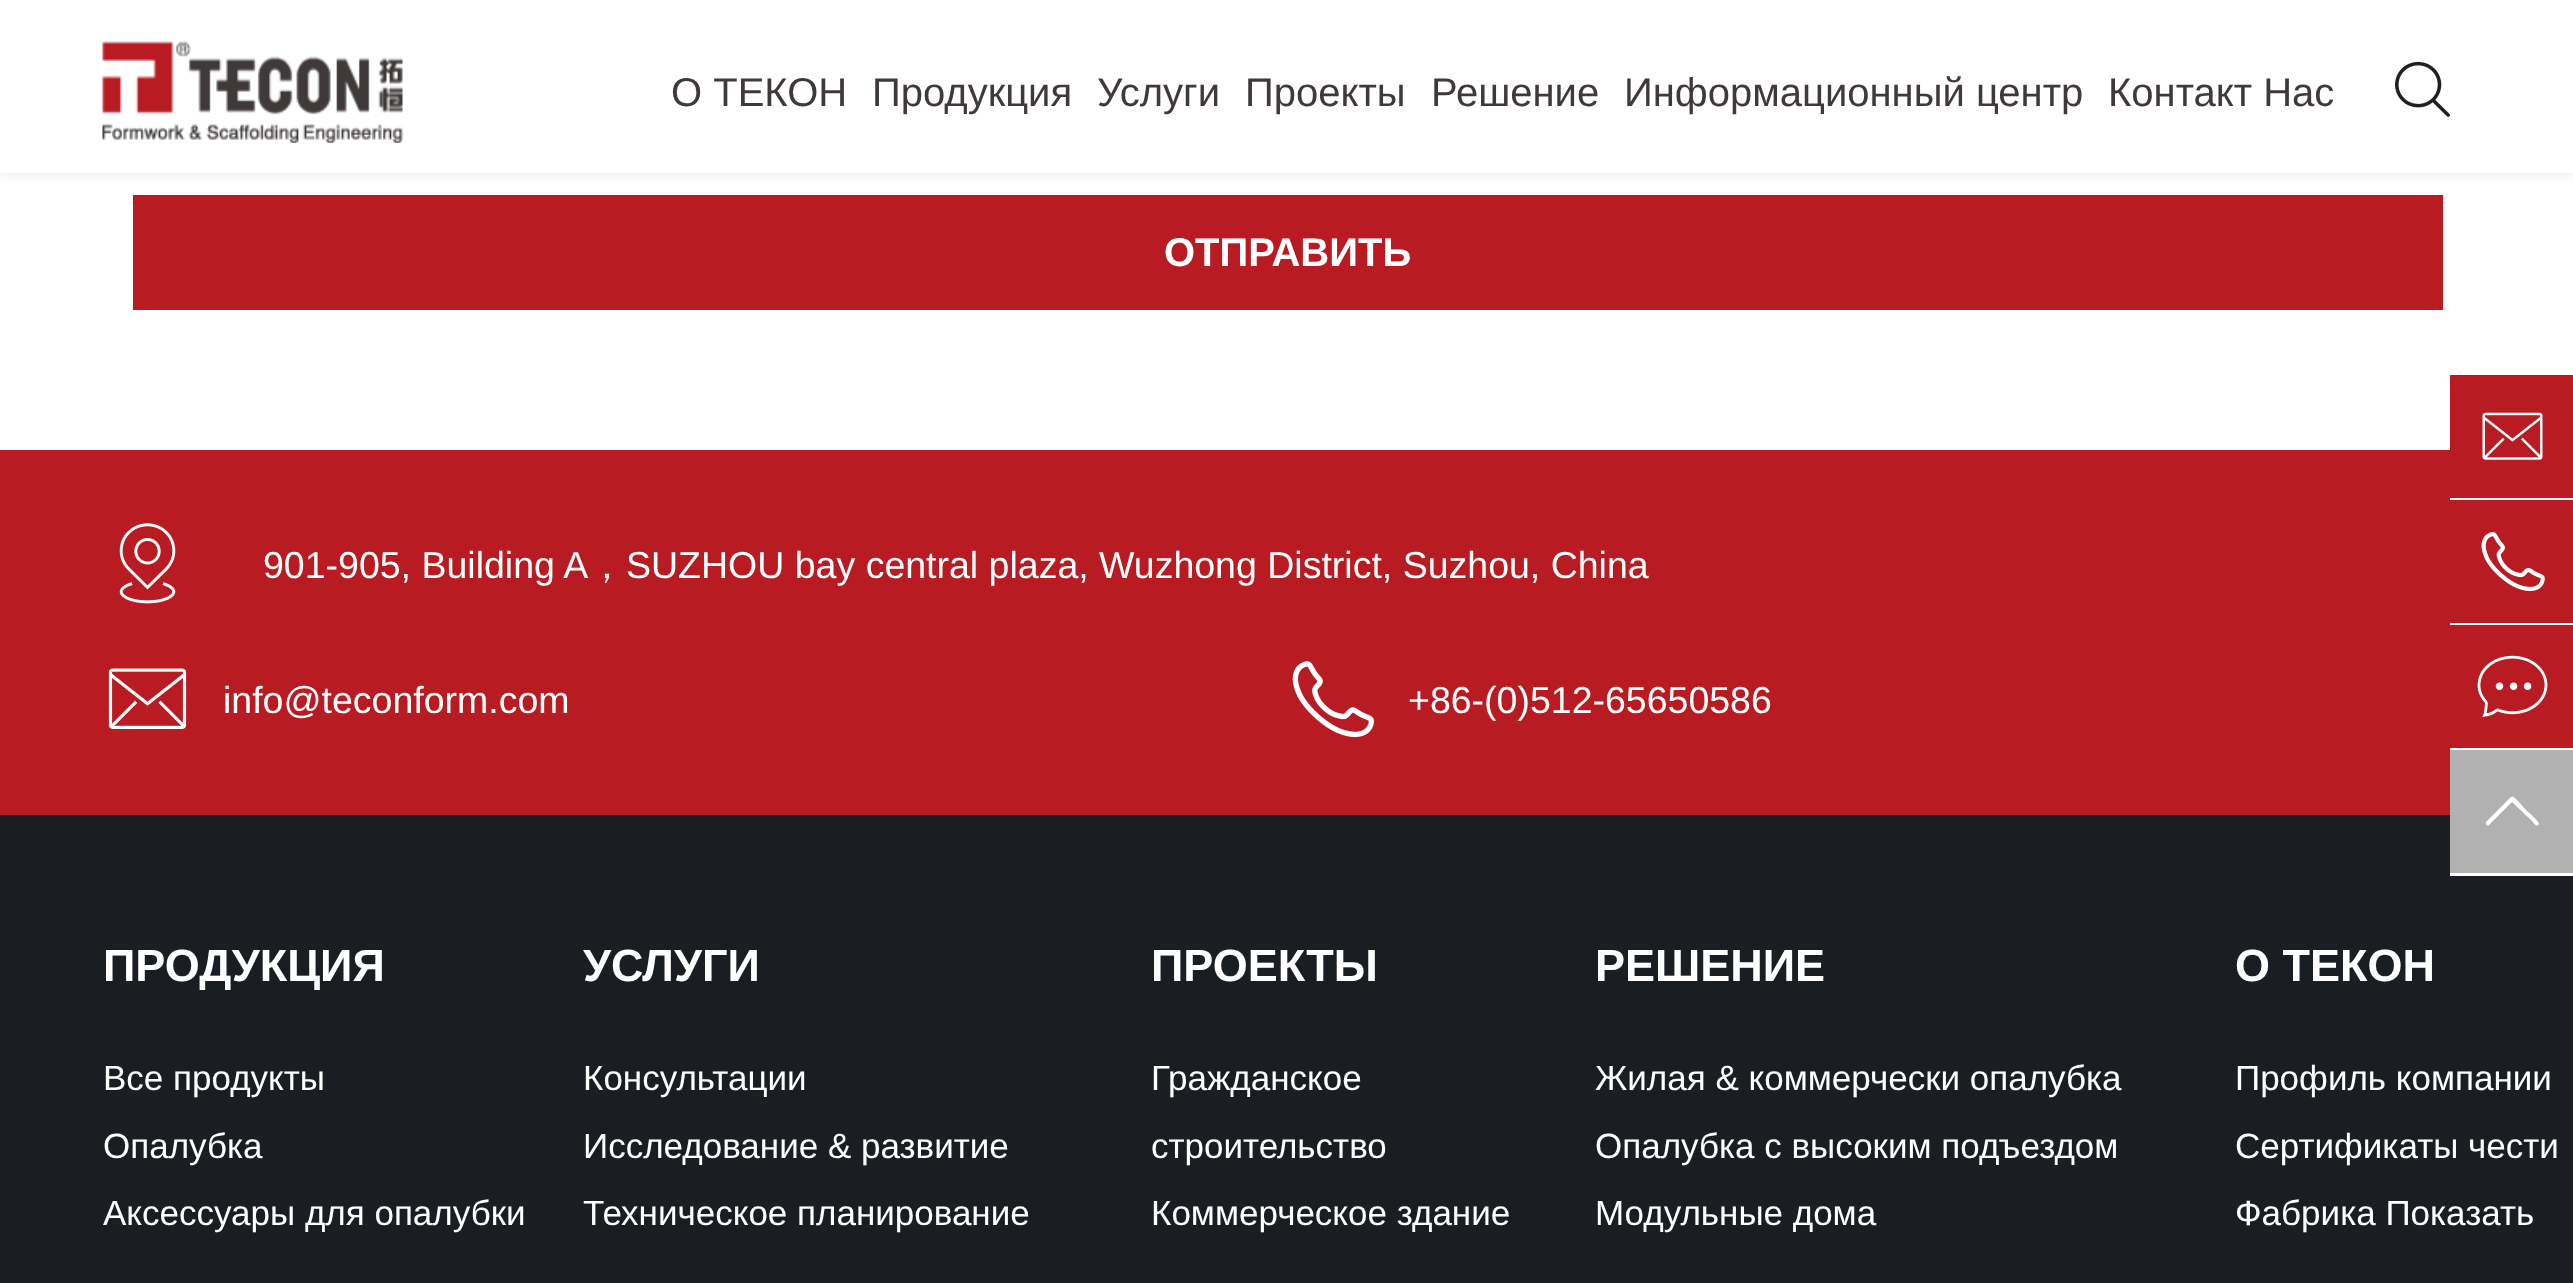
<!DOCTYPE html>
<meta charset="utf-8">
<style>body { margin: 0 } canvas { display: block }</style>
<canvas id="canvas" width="2573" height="1283"></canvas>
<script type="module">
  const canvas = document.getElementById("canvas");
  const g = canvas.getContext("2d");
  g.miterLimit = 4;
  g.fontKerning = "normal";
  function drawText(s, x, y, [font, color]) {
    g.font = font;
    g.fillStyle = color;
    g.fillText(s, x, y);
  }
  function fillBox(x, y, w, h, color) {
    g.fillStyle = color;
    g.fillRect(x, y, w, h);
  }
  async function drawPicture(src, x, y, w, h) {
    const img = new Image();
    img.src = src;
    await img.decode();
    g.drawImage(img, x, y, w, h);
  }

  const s1 = ["40px Liberation Sans", "#3F3A39"];
  const s2 = ["bold 40px Liberation Sans", "#FFFFFF"];
  const s3 = ["37.5px Liberation Sans", "#FFFFFF"];
  const s4 = ["500 37.5px WenQuanYi Zen Hei", "#FFFFFF"];
  const s5 = ["bold 45px Liberation Sans", "#FFFFFF"];
  const s6 = ["35px Liberation Sans", "#FFFFFF"];

  fillBox(0, 0, 2573, 1283, "#FFFFFF");
  g.fillStyle = "rgba(0, 0, 0, 0.1)";
  g.filter = "blur(6px)";
  g.beginPath();
  g.rect(0, 0, 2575, 173);
  g.fill();
  g.filter = "none";
  fillBox(0, 0, 2573, 173, "#FFFFFF");
  await drawPicture("pic1.png", 102, 41, 301, 102);
  drawText("О ТЕКОН", 671, 106, s1);
  drawText("Продукция", 872, 106, s1);
  drawText("Услуги", 1097, 106, s1);
  drawText("Проекты", 1245, 106, s1);
  drawText("Решение", 1431, 106, s1);
  drawText("Информационный центр", 1624, 106, s1);
  drawText("Контакт Нас", 2108, 106, s1);
  await drawPicture("pic2.png", 2395, 61, 55, 56);
  fillBox(133, 195, 2310, 115, "#B81C22");
  drawText("ОТПРАВИТЬ", 1164, 266, s2);
  fillBox(2450, 375, 123, 123, "#B81C22");
  await drawPicture("pic3.png", 2482, 412, 61, 48);
  fillBox(2450, 500, 123, 123, "#B81C22");
  await drawPicture("pic4.png", 2481, 532, 64, 60);
  fillBox(2450, 625, 123, 123, "#B81C22");
  await drawPicture("pic5.png", 2477, 655, 71, 62);
  fillBox(0, 815, 2573, 468, "#1A1D22");
  fillBox(2450, 750, 123, 123, "#B1B1B1");
  fillBox(2450, 873, 123, 3, "#FFFFFF");
  g.beginPath();
  g.moveTo(2539, 824);
  g.lineTo(2538, 825);
  g.bezierCurveTo(2536, 827, 2533, 822, 2532, 821);
  g.lineTo(2512, 802);
  g.lineTo(2489, 825);
  g.bezierCurveTo(2488, 827, 2485, 824, 2486, 822);
  g.lineTo(2507, 801);
  g.bezierCurveTo(2513, 795, 2512, 795, 2518, 801);
  g.lineTo(2526, 810);
  g.bezierCurveTo(2528, 812, 2539, 821, 2539, 824);
  g.closePath();
  g.fill();
  fillBox(0, 450, 2450, 365, "#B81C22");
  await drawPicture("pic6.png", 119, 523, 57, 81);
  drawText("901-905, Building A", 263, 578, s3);
  drawText("，", 588, 578, s4);
  drawText("SUZHOU bay central plaza, Wuzhong District, Suzhou, China", 626, 578, s3);
  await drawPicture("pic7.png", 108, 668, 79, 61);
  drawText("info@teconform.com", 223, 713, s3);
  await drawPicture("pic8.png", 1292, 661, 82, 77);
  drawText("+86-(0)512-65650586", 1408, 713, s3);
  drawText("ПРОДУКЦИЯ", 103, 981, s5);
  drawText("Все продукты", 103, 1090, s6);
  drawText("Опалубка", 103, 1158, s6);
  drawText("Аксессуары для опалубки", 103, 1225, s6);
  drawText("УСЛУГИ", 583, 981, s5);
  drawText("Консультации", 583, 1090, s6);
  drawText("Исследование & развитие", 583, 1158, s6);
  drawText("Техническое планирование", 583, 1225, s6);
  drawText("ПРОЕКТЫ", 1151, 981, s5);
  drawText("Гражданское", 1151, 1090, s6);
  drawText("строительство", 1151, 1158, s6);
  drawText("Коммерческое здание", 1151, 1225, s6);
  drawText("РЕШЕНИЕ", 1595, 981, s5);
  drawText("Жилая & коммерчески опалубка", 1595, 1090, s6);
  drawText("Опалубка с высоким подъездом", 1595, 1158, s6);
  drawText("Модульные дома", 1595, 1225, s6);
  drawText("О ТЕКОН", 2235, 981, s5);
  drawText("Профиль компании", 2235, 1090, s6);
  drawText("Сертификаты чести", 2235, 1158, s6);
  drawText("Фабрика Показать", 2235, 1225, s6);
</script>
